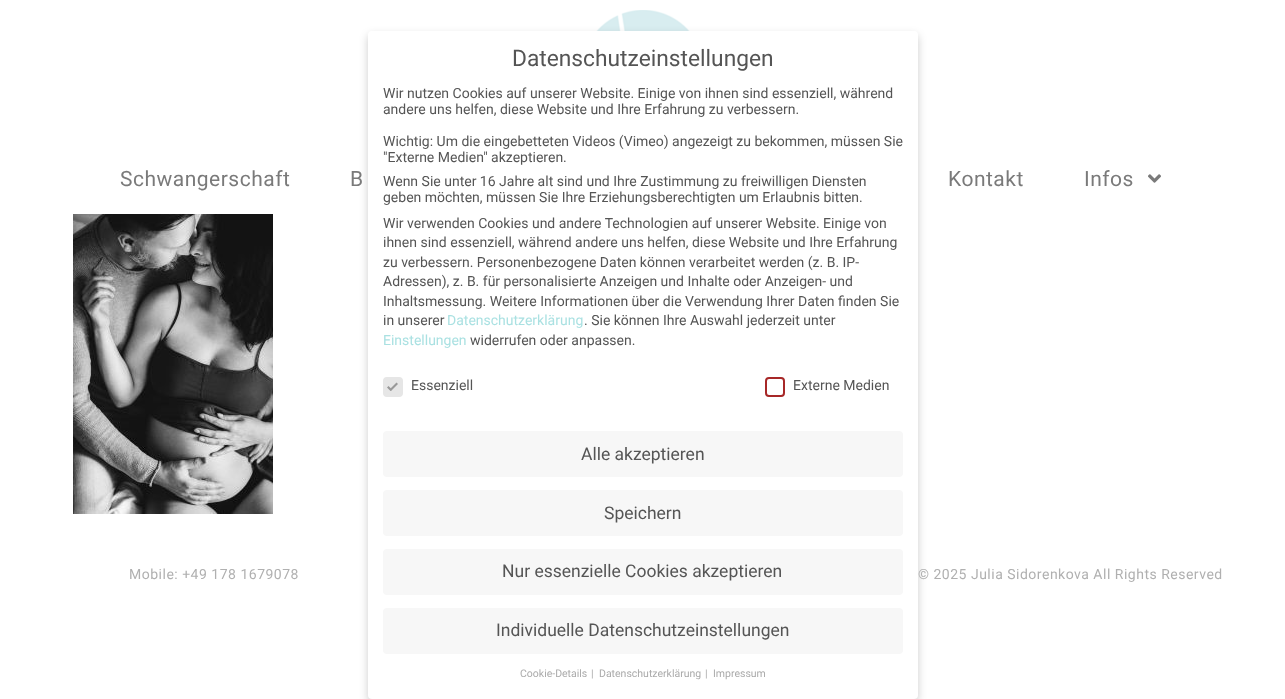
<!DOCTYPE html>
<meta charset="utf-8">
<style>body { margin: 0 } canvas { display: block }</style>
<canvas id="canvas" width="1285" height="699"></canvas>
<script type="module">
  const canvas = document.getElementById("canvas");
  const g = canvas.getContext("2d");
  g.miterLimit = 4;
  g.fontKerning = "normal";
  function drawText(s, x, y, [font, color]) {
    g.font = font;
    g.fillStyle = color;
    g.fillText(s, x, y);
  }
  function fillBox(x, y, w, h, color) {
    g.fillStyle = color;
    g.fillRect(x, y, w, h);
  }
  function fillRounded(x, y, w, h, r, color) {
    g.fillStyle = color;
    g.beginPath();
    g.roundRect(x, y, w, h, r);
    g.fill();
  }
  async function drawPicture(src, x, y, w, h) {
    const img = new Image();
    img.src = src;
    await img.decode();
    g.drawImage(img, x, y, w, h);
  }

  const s1 = ["22.75px Roboto", "#555555"];
  const s2 = ["14px Roboto", "#555555"];
  const s3 = ["14px Roboto", "#AAE1E2"];
  const s4 = ["17.5px Roboto", "#555555"];
  const s5 = ["10.5px Roboto", "#AAAAAA"];
  const s6 = ["21px Roboto", "#7A7A7A"];
  const s7 = ["14px Roboto", "#B0B0B0"];

  fillBox(0, 0, 1285, 699, "#FFFFFF");
  await drawPicture("pic1.png", 596, 10, 94, 21);
  g.fillStyle = "rgba(0, 0, 0, 0.2)";
  g.filter = "blur(4px)";
  g.beginPath();
  g.roundRect(368, 35, 550, 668, 4);
  g.fill();
  g.filter = "none";
  fillRounded(368, 31, 550, 668, 4, "#FFFFFF");
  drawText("Datenschutzeinstellungen", 512, 66, s1);
  drawText("Wir nutzen Cookies auf unserer Website. Einige von ihnen sind essenziell, während", 383, 98, s2);
  drawText("andere uns helfen, diese Website und Ihre Erfahrung zu verbessern.", 383, 114, s2);
  drawText("Wichtig: Um die eingebetteten Videos (Vimeo) angezeigt zu bekommen, müssen Sie", 383, 146, s2);
  drawText("\"Externe Medien\" akzeptieren.", 383, 162, s2);
  drawText("Wenn Sie unter 16 Jahre alt sind und Ihre Zustimmung zu freiwilligen Diensten", 383, 186, s2);
  drawText("geben möchten, müssen Sie Ihre Erziehungsberechtigten um Erlaubnis bitten.", 383, 202, s2);
  drawText("Wir verwenden Cookies und andere Technologien auf unserer Website. Einige von", 383, 228, s2);
  drawText("ihnen sind essenziell, während andere uns helfen, diese Website und Ihre Erfahrung", 383, 247, s2);
  drawText("zu verbessern. Personenbezogene Daten können verarbeitet werden (z. B. IP-", 383, 267, s2);
  drawText("Adressen), z. B. für personalisierte Anzeigen und Inhalte oder Anzeigen- und", 383, 286, s2);
  drawText("Inhaltsmessung. Weitere Informationen über die Verwendung Ihrer Daten finden Sie", 383, 306, s2);
  drawText("in unserer", 383, 325, s2);
  drawText("Datenschutzerklärung", 447, 325, s3);
  drawText(". Sie können Ihre Auswahl jederzeit unter", 584, 325, s2);
  drawText("Einstellungen", 383, 345, s3);
  drawText("widerrufen oder anpassen.", 470, 345, s2);
  g.fillStyle = "#E6E6E6";
  g.beginPath();
  g.roundRect(384, 378, 18, 18, 3);
  g.fill();
  g.strokeStyle = "#E6E6E6";
  g.lineWidth = 2;
  g.stroke();
  g.fillStyle = "#999999";
  g.beginPath();
  g.moveTo(396.5, 382.5);
  g.lineTo(398, 384);
  g.lineTo(391, 391);
  g.lineTo(389.5, 389.5);
  g.closePath();
  g.fill();
  g.beginPath();
  g.moveTo(388.5, 386);
  g.lineTo(392, 389.5);
  g.lineTo(390.5, 391);
  g.lineTo(387, 387.5);
  g.closePath();
  g.fill();
  drawText("Essenziell", 411, 390, s2);
  g.beginPath();
  g.roundRect(766, 378, 18, 18, 3);
  g.strokeStyle = "#A72828";
  g.stroke();
  drawText("Externe Medien", 793, 390, s2);
  fillRounded(383, 431, 520, 46, 4, "#F7F7F7");
  drawText("Alle akzeptieren", 581, 460, s4);
  fillRounded(383, 490, 520, 46, 4, "#F7F7F7");
  drawText("Speichern", 604, 519, s4);
  fillRounded(383, 549, 520, 46, 4, "#F7F7F7");
  drawText("Nur essenzielle Cookies akzeptieren", 502, 577, s4);
  fillRounded(383, 608, 520, 46, 4, "#F7F7F7");
  drawText("Individuelle Datenschutzeinstellungen", 496, 636, s4);
  drawText("Cookie-Details", 520, 677, s5);
  drawText("|", 591, 677, s5);
  drawText("Datenschutzerklärung", 599, 677, s5);
  drawText("|", 705, 677, s5);
  drawText("Impressum", 713, 677, s5);
  g.letterSpacing = "0.5px";
  drawText("Schwangerschaft", 120, 186, s6);
  drawText("B", 350, 186, s6);
  drawText("Kontakt", 948, 186, s6);
  drawText("Infos", 1084, 186, s6);
  await drawPicture("pic2.png", 1148, 174, 13, 9);
  await drawPicture("pic3.png", 73, 214, 200, 300);
  drawText("Mobile: +49 178 1679078", 129, 579, s7);
  drawText("© 2025 Julia Sidorenkova All Rights Reserved", 918, 579, s7);
</script>
